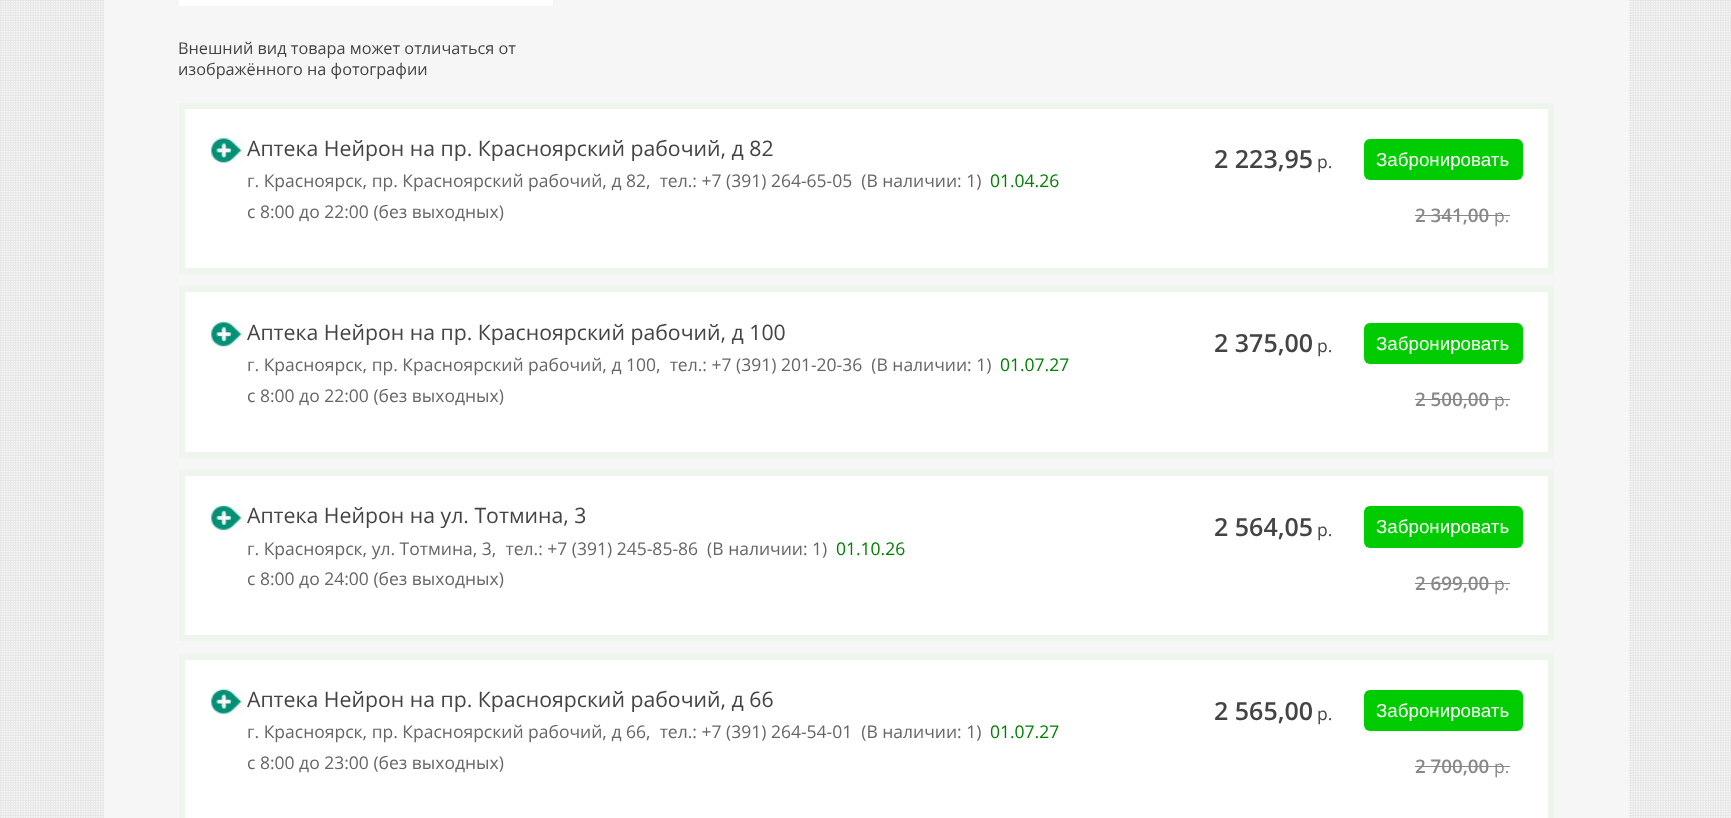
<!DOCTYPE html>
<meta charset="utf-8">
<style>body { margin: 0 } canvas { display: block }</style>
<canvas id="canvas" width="1731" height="818"></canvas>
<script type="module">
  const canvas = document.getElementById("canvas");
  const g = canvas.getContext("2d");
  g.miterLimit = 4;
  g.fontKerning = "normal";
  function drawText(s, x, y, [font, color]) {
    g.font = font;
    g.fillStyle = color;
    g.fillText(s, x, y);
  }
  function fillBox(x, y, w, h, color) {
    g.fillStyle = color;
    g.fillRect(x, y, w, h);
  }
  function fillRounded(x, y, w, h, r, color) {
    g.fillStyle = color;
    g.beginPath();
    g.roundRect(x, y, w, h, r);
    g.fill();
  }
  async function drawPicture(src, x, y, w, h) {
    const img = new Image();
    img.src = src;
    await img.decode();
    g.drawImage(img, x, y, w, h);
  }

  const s1 = ["16.25px Open Sans", "#444444"];
  const s2 = ["21.25px Open Sans", "#444444"];
  const s3 = ["17.5px Open Sans", "#666666"];
  const s4 = ["17.5px Open Sans", "#008000"];
  const s5 = ["600 25px Open Sans", "#444444"];
  const s6 = ["17.5px Open Sans", "#444444"];
  const s7 = ["18.75px Liberation Sans", "#FFFFFF"];
  const s8 = ["600 18.75px Open Sans", "#888888"];
  const s9 = ["17.5px Open Sans", "#888888"];

  fillBox(0, 0, 1731, 818, "#FFFFFF");
  await drawPicture("pic1.png", 0, 0, 1731, 818);
  fillBox(104, 0, 1525, 818, "#F6F6F6");
  fillBox(179, 0, 374, 6, "#FEFEFE");
  drawText("Внешний вид товара может отличаться от", 178, 54, s1);
  drawText("изображённого на фотографии", 178, 75, s1);
  g.fillStyle = "#FFFFFF";
  g.beginPath();
  g.rect(182, 106, 1369, 165);
  g.fill();
  g.strokeStyle = "#EEF5ED";
  g.lineWidth = 6;
  g.stroke();
  await drawPicture("pic2.png", 210, 137, 34, 27);
  drawText("Аптека Нейрон на пр. Красноярский рабочий, д 82", 247, 156, s2);
  drawText("г. Красноярск, пр. Красноярский рабочий, д 82,  тел.: +7 (391) 264-65-05  (В наличии: 1)", 247, 187, s3);
  drawText("01.04.26", 990, 187, s4);
  drawText("c 8:00 до 22:00 (без выходных)", 247, 218, s3);
  drawText("2 223,95", 1214, 168, s5);
  drawText("р.", 1317, 168, s6);
  fillRounded(1364, 139, 159, 41, 6, "#00CC01");
  drawText("Забронировать", 1376, 166, s7);
  drawText("2 341,00", 1415, 222, s8);
  fillBox(1415, 215, 75, 1, "#888888");
  fillBox(1490, 215, 20, 1, "#888888");
  drawText("р.", 1494, 222, s9);
  g.fillStyle = "#FFFFFF";
  g.beginPath();
  g.rect(182, 289, 1369, 166);
  g.fill();
  g.stroke();
  await drawPicture("pic3.png", 210, 321, 34, 27);
  drawText("Аптека Нейрон на пр. Красноярский рабочий, д 100", 247, 340, s2);
  drawText("г. Красноярск, пр. Красноярский рабочий, д 100,  тел.: +7 (391) 201-20-36  (В наличии: 1)", 247, 371, s3);
  drawText("01.07.27", 1000, 371, s4);
  drawText("c 8:00 до 22:00 (без выходных)", 247, 402, s3);
  drawText("2 375,00", 1214, 352, s5);
  drawText("р.", 1317, 352, s6);
  fillRounded(1364, 323, 159, 41, 6, "#00CC01");
  drawText("Забронировать", 1376, 350, s7);
  drawText("2 500,00", 1415, 406, s8);
  fillBox(1415, 399, 75, 1, "#888888");
  fillBox(1490, 399, 20, 1, "#888888");
  drawText("р.", 1494, 406, s9);
  g.fillStyle = "#FFFFFF";
  g.beginPath();
  g.rect(182, 473, 1369, 165);
  g.fill();
  g.stroke();
  await drawPicture("pic4.png", 210, 504, 34, 27);
  drawText("Аптека Нейрон на ул. Тотмина, 3", 247, 523, s2);
  drawText("г. Красноярск, ул. Тотмина, 3,  тел.: +7 (391) 245-85-86  (В наличии: 1)", 247, 555, s3);
  drawText("01.10.26", 836, 555, s4);
  drawText("c 8:00 до 24:00 (без выходных)", 247, 585, s3);
  drawText("2 564,05", 1214, 536, s5);
  drawText("р.", 1317, 536, s6);
  fillRounded(1364, 506, 159, 42, 6, "#00CC01");
  drawText("Забронировать", 1376, 533, s7);
  drawText("2 699,00", 1415, 590, s8);
  fillBox(1415, 583, 75, 1, "#888888");
  fillBox(1490, 583, 20, 1, "#888888");
  drawText("р.", 1494, 590, s9);
  g.fillStyle = "#FFFFFF";
  g.beginPath();
  g.rect(182, 657, 1369, 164);
  g.fill();
  g.stroke();
  await drawPicture("pic5.png", 210, 688, 34, 27);
  drawText("Аптека Нейрон на пр. Красноярский рабочий, д 66", 247, 707, s2);
  drawText("г. Красноярск, пр. Красноярский рабочий, д 66,  тел.: +7 (391) 264-54-01  (В наличии: 1)", 247, 738, s3);
  drawText("01.07.27", 990, 738, s4);
  drawText("c 8:00 до 23:00 (без выходных)", 247, 769, s3);
  drawText("2 565,00", 1214, 720, s5);
  drawText("р.", 1317, 720, s6);
  fillRounded(1364, 690, 159, 41, 6, "#00CC01");
  drawText("Забронировать", 1376, 717, s7);
  drawText("2 700,00", 1415, 773, s8);
  fillBox(1415, 766, 75, 1, "#888888");
  fillBox(1490, 766, 20, 1, "#888888");
  drawText("р.", 1494, 773, s9);
</script>
